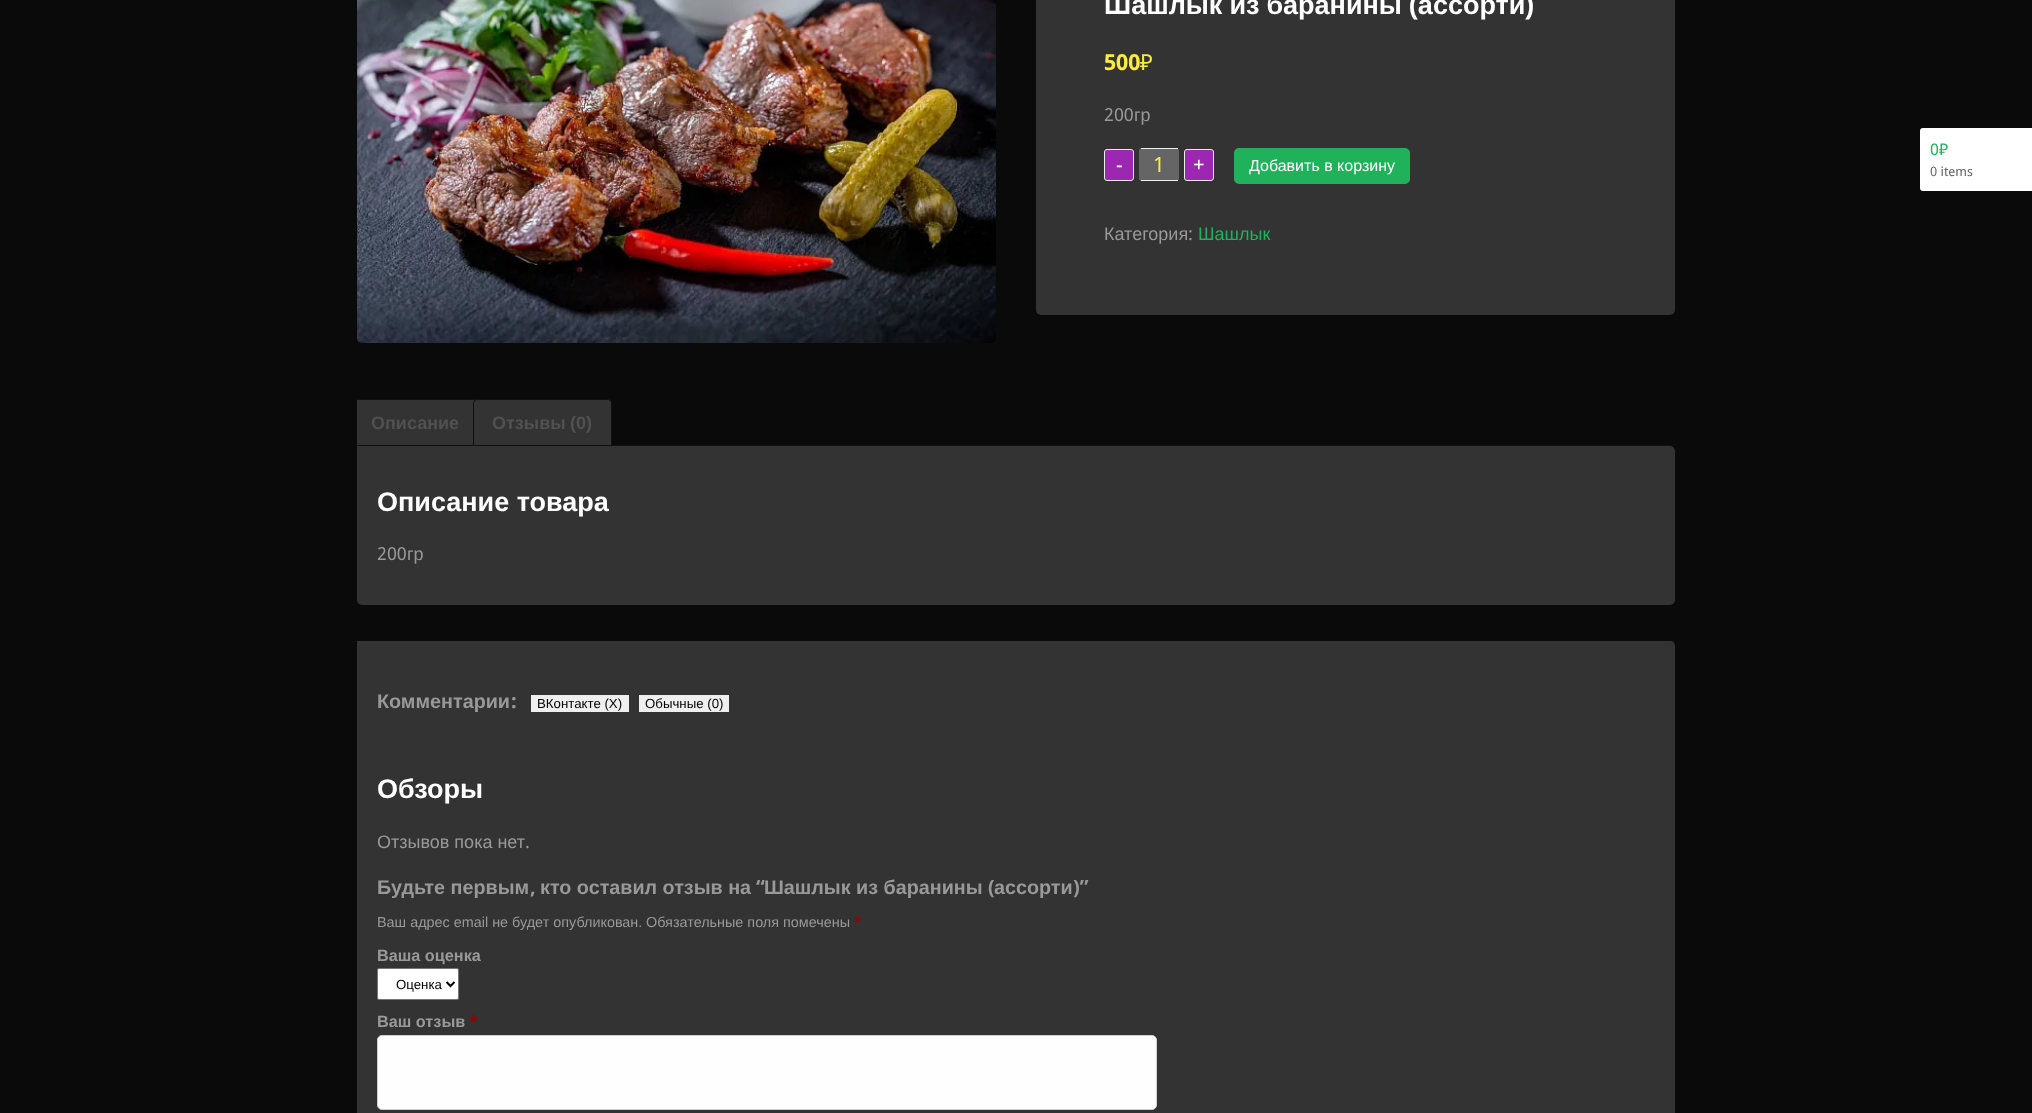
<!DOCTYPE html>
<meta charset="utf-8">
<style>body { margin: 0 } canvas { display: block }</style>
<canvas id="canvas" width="2032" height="1113"></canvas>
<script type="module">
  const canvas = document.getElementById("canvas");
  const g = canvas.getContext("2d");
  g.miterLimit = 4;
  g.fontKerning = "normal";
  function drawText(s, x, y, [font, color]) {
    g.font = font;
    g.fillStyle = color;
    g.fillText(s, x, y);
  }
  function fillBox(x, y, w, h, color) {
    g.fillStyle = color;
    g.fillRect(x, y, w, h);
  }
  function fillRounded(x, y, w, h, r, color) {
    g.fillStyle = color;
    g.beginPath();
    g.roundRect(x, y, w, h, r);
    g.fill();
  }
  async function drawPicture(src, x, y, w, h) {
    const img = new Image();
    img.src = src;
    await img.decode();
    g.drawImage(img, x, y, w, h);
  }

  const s1 = ["bold 27px Liberation Sans", "#FFFFFF"];
  const s2 = ["bold 22px Droid Sans", "#FFEB3B"];
  const s3 = ["22px Noto Sans", "#FFEB3B"];
  const s4 = ["18px Droid Sans", "#999999"];
  const s5 = ["18px Liberation Sans", "#999999"];
  const s6 = ["21px Droid Sans", "#FFFFFF"];
  const s7 = ["21px Droid Sans", "#FFEB3B"];
  const s8 = ["16px Liberation Sans", "#FFFFFF"];
  const s9 = ["18px Liberation Sans", "#1FB25A"];
  const s10 = ["bold 18px Liberation Sans", "#515151"];
  const s11 = ["bold 19.75px Liberation Sans", "#999999"];
  const s12 = ["bold 19.75px Droid Sans", "#999999"];
  const s13 = ["13.25px Liberation Sans", "#000000"];
  const s14 = ["14.4px Liberation Sans", "#999999"];
  const s15 = ["14.4px Droid Sans", "#990000"];
  const s16 = ["bold 16.25px Liberation Sans", "#999999"];
  const s17 = ["bold 16.25px Droid Sans", "#990000"];
  const s18 = ["16px Droid Sans", "#1FB25A"];
  const s19 = ["16px Noto Sans", "#1FB25A"];
  const s20 = ["13px Droid Sans", "#666666"];

  fillBox(0, 0, 2032, 1113, "#0A0A0A");
  await drawPicture("pic1.png", 357, 0, 639, 343);
  fillRounded(1036, -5, 639, 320, 5, "#333333");
  g.wordSpacing = "-0.5px";
  drawText("Шашлык из баранины (ассорти)", 1104, 14, s1);
  g.wordSpacing = "0px";
  drawText("500", 1104, 70, s2);
  drawText("₽", 1140, 70, s3);
  drawText("200", 1104, 121, s4);
  drawText("гр", 1134, 121, s5);
  g.fillStyle = "#9C27B0";
  g.beginPath();
  g.roundRect(1104.5, 149.5, 29, 31, 2.5);
  g.fill();
  g.strokeStyle = "#EEEEEE";
  g.stroke();
  drawText("-", 1116, 172, s6);
  fillRounded(1139, 148, 40, 33, 3, "#656565");
  fillBox(1141, 148, 37, 1, "#EEEEEE");
  fillBox(1141, 180, 37, 1, "#EEEEEE");
  drawText("1", 1153, 172, s7);
  g.fillStyle = "#9C27B0";
  g.beginPath();
  g.roundRect(1184.5, 149.5, 29, 31, 2.5);
  g.fill();
  g.stroke();
  drawText("+", 1193, 172, s6);
  fillRounded(1234, 148, 176, 36, 5, "#1FB25A");
  drawText("Добавить в корзину", 1249, 171, s8);
  drawText("Категория", 1104, 240, s5);
  drawText(":", 1188, 240, s4);
  drawText("Шашлык", 1198, 240, s9);
  g.fillStyle = "#333333";
  g.beginPath();
  g.roundRect(357, 399, 122, 47, [0, 4, 0, 0]);
  g.fill();
  g.save();
  g.beginPath();
  g.rect(357, 399, 1318, 47);
  g.clip();
  g.beginPath();
  g.roundRect(352.5, 399.5, 126, 46, [3.5, 3.5, 0, 0]);
  g.strokeStyle = "#111111";
  g.stroke();
  g.restore();
  drawText("Описание", 371, 429, s10);
  g.fillStyle = "#333333";
  g.beginPath();
  g.roundRect(473.5, 399.5, 138, 46, [3.5, 3.5, 0, 0]);
  g.fill();
  g.strokeStyle = "#111111";
  g.stroke();
  drawText("Отзывы", 492, 429, s10);
  drawText("(0)", 570, 429, s10);
  fillBox(612, 445, 1063, 1, "#111111");
  g.fillStyle = "#333333";
  g.beginPath();
  g.roundRect(357, 446, 1318, 159, [0, 5, 5, 5]);
  g.fill();
  drawText("Описание товара", 377, 511, s1);
  drawText("200", 377, 560, s4);
  drawText("гр", 407, 560, s5);
  g.fillStyle = "#333333";
  g.beginPath();
  g.moveTo(357, 641);
  g.lineTo(1670, 641);
  g.bezierCurveTo(1673, 641, 1675, 643, 1675, 646);
  g.lineTo(1675, 1113);
  g.bezierCurveTo(1675, 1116, 1673, 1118, 1670, 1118);
  g.lineTo(362, 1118);
  g.bezierCurveTo(359, 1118, 357, 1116, 357, 1113);
  g.closePath();
  g.fill();
  drawText("Комментарии", 377, 708, s11);
  drawText(":", 511, 708, s12);
  fillBox(531, 695, 98, 17, "#EFEFEF");
  drawText("ВКонтакте (X)", 537, 708, s13);
  fillBox(639, 695, 90, 17, "#EFEFEF");
  drawText("Обычные (0)", 645, 708, s13);
  drawText("Обзоры", 377, 798, s1);
  drawText("Отзывов пока нет", 377, 848, s5);
  drawText(".", 525, 848, s4);
  drawText("Будьте первым", 377, 894, s11);
  drawText(",", 530, 894, s12);
  drawText("кто оставил отзыв на", 540, 894, s11);
  drawText("“", 756, 894, s12);
  drawText("Шашлык из баранины", 764, 894, s11);
  drawText("(", 988, 894, s12);
  drawText("ассорти", 994, 894, s11);
  drawText(")”", 1073, 894, s12);
  drawText("Ваш адрес email не будет опубликован.", 377, 927, s14);
  drawText("Обязательные поля помечены", 646, 927, s14);
  drawText("*", 854, 927, s15);
  drawText("Ваша оценка", 377, 961, s16);
  g.fillStyle = "#FFFFFF";
  g.beginPath();
  g.roundRect(377.5, 968.5, 81, 31, 1.5);
  g.fill();
  g.strokeStyle = "#767676";
  g.stroke();
  g.beginPath();
  g.moveTo(446.5, 982);
  g.lineTo(450.5, 986);
  g.lineTo(454.5, 982);
  g.strokeStyle = "#000000";
  g.lineWidth = 2;
  g.stroke();
  drawText("Оценка", 396, 989, s13);
  drawText("Ваш отзыв", 377, 1027, s16);
  drawText("*", 469, 1027, s17);
  g.fillStyle = "#FEFEFE";
  g.beginPath();
  g.roundRect(377.5, 1035.5, 779, 74, 4.5);
  g.fill();
  g.strokeStyle = "#D0D0D0";
  g.lineWidth = 1;
  g.stroke();
  g.fillStyle = "#FFFFFF";
  g.beginPath();
  g.roundRect(1920, 128, 112, 63, [3, 0, 0, 3]);
  g.fill();
  drawText("0", 1930, 155, s18);
  drawText("₽", 1939, 155, s19);
  drawText("0 items", 1930, 176, s20);
</script>
